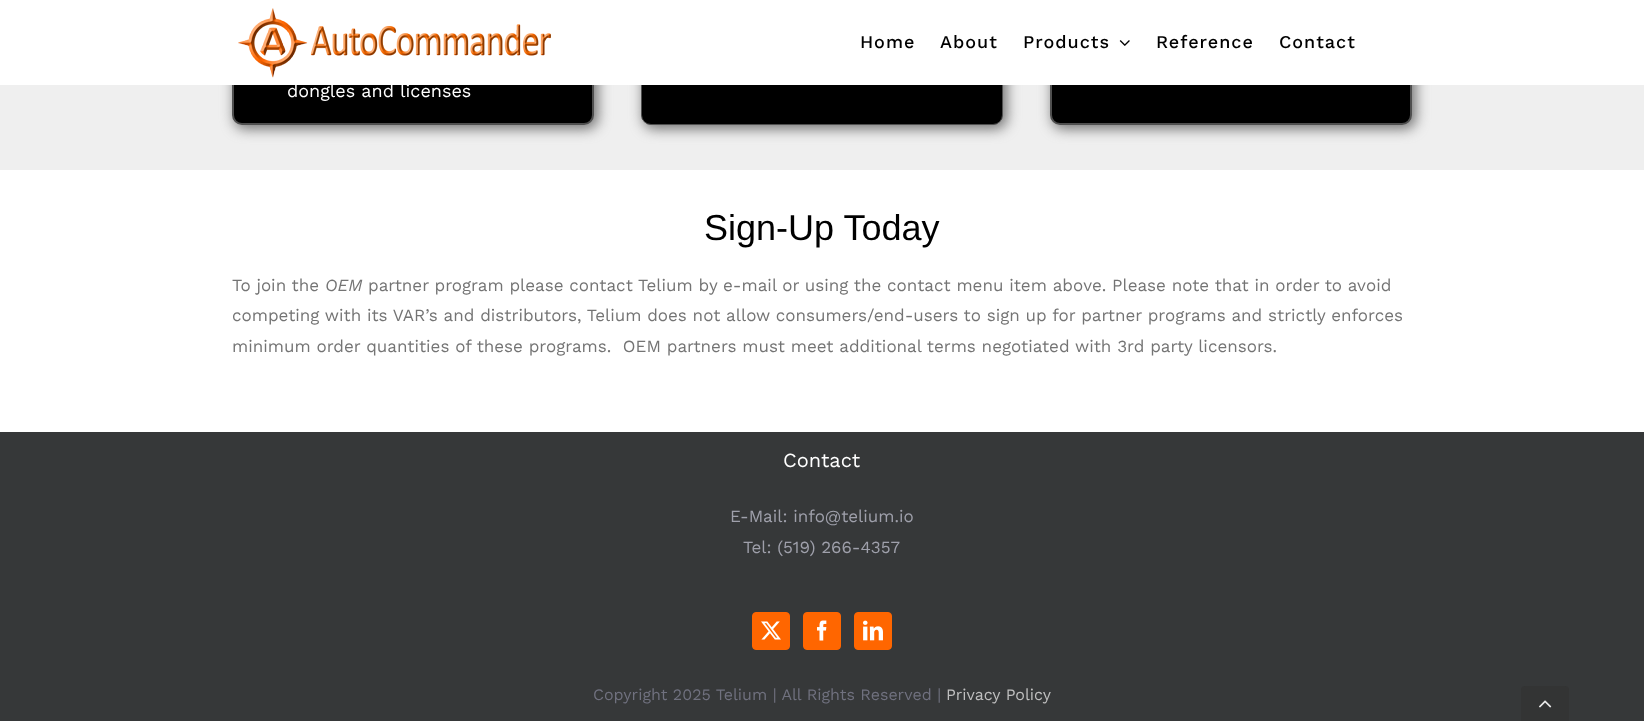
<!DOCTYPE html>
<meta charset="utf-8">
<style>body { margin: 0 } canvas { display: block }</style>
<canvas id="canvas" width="1644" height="721"></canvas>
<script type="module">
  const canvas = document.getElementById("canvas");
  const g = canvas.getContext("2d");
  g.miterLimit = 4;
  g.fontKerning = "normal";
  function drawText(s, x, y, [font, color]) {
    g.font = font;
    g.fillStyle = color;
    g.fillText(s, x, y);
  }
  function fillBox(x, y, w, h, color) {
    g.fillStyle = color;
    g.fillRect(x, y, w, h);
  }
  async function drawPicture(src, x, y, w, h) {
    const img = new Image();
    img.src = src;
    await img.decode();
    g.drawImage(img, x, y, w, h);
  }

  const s1 = ["500 18px Work Sans", "#000000"];
  const s2 = ["18px Work Sans", "#FFFFFF"];
  const s3 = ["36px Liberation Sans", "#000000"];
  const s4 = ["17px Work Sans", "#747474"];
  const s5 = ["italic 17px Work Sans", "#747474"];
  const s6 = ["20px Work Sans", "#FFFFFF"];
  const s7 = ["17px Work Sans", "#9FA0AB"];
  const s8 = ["16px Work Sans", "#70717F"];
  const s9 = ["16px Work Sans", "#BFBFBF"];

  fillBox(0, 0, 1644, 721, "#363839");
  fillBox(0, 170, 1644, 262, "#FFFFFF");
  fillBox(0, 85, 1644, 85, "#EFEFEF");
  g.fillStyle = "#747474";
  g.filter = "blur(6.5px)";
  g.beginPath();
  g.roundRect(234, -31, 364, 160, 11);
  g.fill();
  g.filter = "none";
  g.fillStyle = "#000000";
  g.beginPath();
  g.roundRect(233, -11, 360, 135, 9);
  g.fill();
  g.strokeStyle = "#4F4F4F";
  g.lineWidth = 2;
  g.stroke();
  g.fillStyle = "#747474";
  g.filter = "blur(6.5px)";
  g.beginPath();
  g.roundRect(643, -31, 364, 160, 11);
  g.fill();
  g.filter = "none";
  g.fillStyle = "#000000";
  g.beginPath();
  g.roundRect(641.5, -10.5, 361, 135, 9.5);
  g.fill();
  g.lineWidth = 1;
  g.stroke();
  g.fillStyle = "#747474";
  g.filter = "blur(6.5px)";
  g.beginPath();
  g.roundRect(1052, -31, 364, 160, 11);
  g.fill();
  g.filter = "none";
  g.fillStyle = "#000000";
  g.beginPath();
  g.roundRect(1051, -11, 360, 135, 9);
  g.fill();
  g.lineWidth = 2;
  g.stroke();
  fillBox(0, 0, 1644, 85, "#FFFFFF");
  await drawPicture("pic1.png", 238, 8, 313, 70);
  g.letterSpacing = "1px";
  drawText("Home", 860, 48, s1);
  drawText("About", 940, 48, s1);
  drawText("Products", 1023, 48, s1);
  await drawPicture("pic2.png", 1119, 40, 11, 6);
  drawText("Reference", 1156, 48, s1);
  drawText("Contact", 1279, 48, s1);
  g.letterSpacing = "0px";
  drawText("dongles and licenses", 287, 97, s2);
  drawText("Sign-Up Today", 704, 240, s3);
  drawText("To join the", 232, 291, s4);
  drawText("OEM", 325, 291, s5);
  drawText("partner program please contact Telium by e-mail or using the contact menu item above. Please note that in order to avoid", 368, 291, s4);
  drawText("competing with its VAR’s and distributors, Telium does not allow consumers/end-users to sign up for partner programs and strictly enforces", 232, 321, s4);
  drawText("minimum order quantities of these programs.  OEM partners must meet additional terms negotiated with 3rd party licensors.", 232, 352, s4);
  drawText("Contact", 783, 467, s6);
  drawText("E-Mail: info@telium.io", 730, 522, s7);
  drawText("Tel: (519) 266-4357", 743, 553, s7);
  g.fillStyle = "#FF6600";
  g.beginPath();
  g.roundRect(752.5, 612.5, 37, 37, 3.5);
  g.fill();
  g.strokeStyle = "#FF6600";
  g.lineWidth = 1;
  g.stroke();
  await drawPicture("pic3.png", 761, 621, 20, 19);
  g.beginPath();
  g.roundRect(803.5, 612.5, 37, 37, 3.5);
  g.fill();
  g.stroke();
  await drawPicture("pic4.png", 817, 620, 10, 21);
  g.beginPath();
  g.roundRect(854.5, 612.5, 37, 37, 3.5);
  g.fill();
  g.stroke();
  await drawPicture("pic5.png", 863, 620, 20, 21);
  drawText("Copyright 2025 Telium | All Rights Reserved |", 593, 700, s8);
  drawText("Privacy Policy", 946, 700, s9);
  g.fillStyle = "#333434";
  g.beginPath();
  g.roundRect(1521, 686, 48, 35, [4, 4, 0, 0]);
  g.fill();
  await drawPicture("pic6.png", 1539, 700, 13, 8);
</script>
